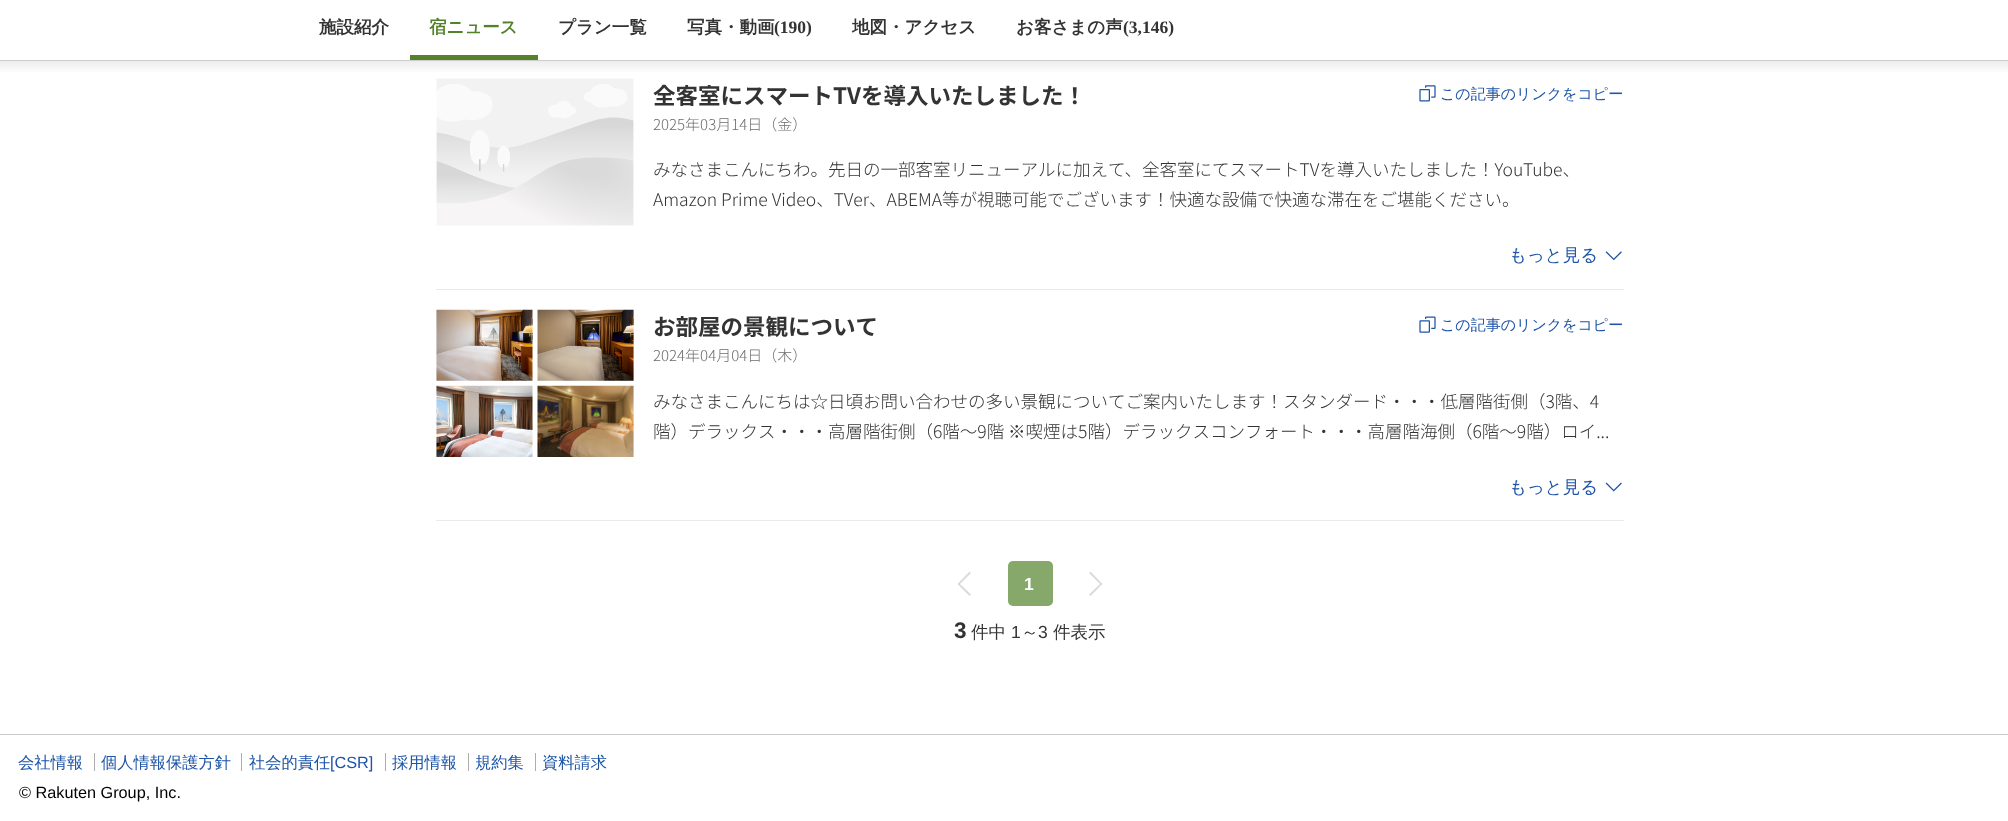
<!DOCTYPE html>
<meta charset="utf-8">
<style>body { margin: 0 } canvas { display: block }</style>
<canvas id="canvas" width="2008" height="821"></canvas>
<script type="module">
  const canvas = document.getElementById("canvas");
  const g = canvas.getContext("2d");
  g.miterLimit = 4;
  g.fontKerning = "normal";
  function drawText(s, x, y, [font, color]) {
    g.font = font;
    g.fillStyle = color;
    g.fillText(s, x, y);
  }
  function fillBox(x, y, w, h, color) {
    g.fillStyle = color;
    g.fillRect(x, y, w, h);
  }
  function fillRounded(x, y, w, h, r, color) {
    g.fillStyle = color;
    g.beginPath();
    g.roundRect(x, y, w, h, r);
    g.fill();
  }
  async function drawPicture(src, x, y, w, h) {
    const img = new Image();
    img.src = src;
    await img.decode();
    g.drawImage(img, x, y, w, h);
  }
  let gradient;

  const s1 = ["bold 17.5px WenQuanYi Zen Hei", "#333333"];
  const s2 = ["bold 17.5px WenQuanYi Zen Hei", "#54822B"];
  const s3 = ["bold 17.5px Liberation Serif", "#333333"];
  const s4 = ["bold 22.5px Noto Sans CJK JP", "#333333"];
  const s5 = ["500 15px WenQuanYi Zen Hei", "#1D54A7"];
  const s6 = ["300 15px Noto Sans CJK JP", "#6D6D6D"];
  const s7 = ["300 17.5px Noto Sans CJK JP", "#333333"];
  const s8 = ["500 17.5px WenQuanYi Zen Hei", "#1D54A7"];
  const s9 = ["bold 17.5px Liberation Sans", "#FFFFFF"];
  const s10 = ["bold 22.5px Liberation Sans", "#333333"];
  const s11 = ["500 17.5px WenQuanYi Zen Hei", "#333333"];
  const s12 = ["17.5px Liberation Sans", "#333333"];
  const s13 = ["500 16.25px WenQuanYi Zen Hei", "#1D54A7"];
  const s14 = ["16.25px Liberation Sans", "#1D54A7"];
  const s15 = ["16.25px Liberation Sans", "#000000"];

  fillBox(0, 0, 2008, 821, "#FFFFFF");
  drawText("施設紹介", 319, 33, s1);
  fillBox(410, 55, 128, 5, "#54822B");
  drawText("宿ニュース", 429, 33, s2);
  drawText("プラン一覧", 558, 33, s1);
  drawText("写真・動画", 687, 33, s1);
  drawText("(190)", 774, 33, s3);
  drawText("地図・アクセス", 852, 33, s1);
  drawText("お客さまの声", 1016, 33, s1);
  drawText("(3,146)", 1123, 33, s3);
  gradient = g.createLinearGradient(1004, 74, 1004, 61);
  gradient.addColorStop(0, "#FFFFFF");
  gradient.addColorStop(1, "#EDEDED");
  g.fillStyle = gradient;
  g.fillRect(0, 61, 2008, 11);
  fillBox(0, 60, 2008, 1, "#CCCCCC");
  await drawPicture("pic1.png", 436, 78, 198, 148);
  drawText("全客室にスマートTVを導入いたしました！", 653, 104, s4);
  await drawPicture("pic2.png", 1419, 85, 17, 17);
  drawText("この記事のリンクをコピー", 1440, 99, s5);
  drawText("2025年03月14日（金）", 653, 130, s6);
  drawText("みなさまこんにちわ。先日の一部客室リニューアルに加えて、全客室にてスマートTVを導入いたしました！YouTube、", 653, 176, s7);
  drawText("Amazon Prime Video、TVer、ABEMA等が視聴可能でございます！快適な設備で快適な滞在をご堪能ください。", 653, 206, s7);
  drawText("もっと見る", 1509, 261, s8);
  await drawPicture("pic3.png", 1605, 251, 17, 10);
  fillBox(436, 289, 1188, 1, "#EAEAEA");
  await drawPicture("pic4.png", 436, 309, 97, 72);
  await drawPicture("pic5.png", 537, 309, 97, 72);
  await drawPicture("pic6.png", 436, 385, 97, 72);
  await drawPicture("pic7.png", 537, 385, 97, 72);
  drawText("お部屋の景観について", 653, 335, s4);
  await drawPicture("pic8.png", 1419, 316, 17, 17);
  drawText("この記事のリンクをコピー", 1440, 330, s5);
  drawText("2024年04月04日（木）", 653, 361, s6);
  drawText("みなさまこんにちは☆日頃お問い合わせの多い景観についてご案内いたします！スタンダード・・・低層階街側（3階、4", 653, 408, s7);
  drawText("階）デラックス・・・高層階街側（6階～9階 ※喫煙は5階）デラックスコンフォート・・・高層階海側（6階～9階）ロイ...", 653, 438, s7);
  drawText("もっと見る", 1509, 493, s8);
  await drawPicture("pic9.png", 1605, 482, 17, 10);
  fillBox(436, 520, 1188, 1, "#EAEAEA");
  g.fillStyle = "#DBDBDB";
  g.beginPath();
  g.moveTo(971, 594.5);
  g.lineTo(960, 584);
  g.lineTo(971, 573);
  g.lineTo(969.5, 571.5);
  g.lineTo(957.5, 584);
  g.lineTo(969.5, 596);
  g.closePath();
  g.fill("evenodd");
  fillRounded(1008, 561, 45, 45, 5, "#87A86B");
  drawText("1", 1024, 590, s9);
  g.fillStyle = "#DBDBDB";
  g.beginPath();
  g.moveTo(1090.5, 571.5);
  g.lineTo(1089, 573);
  g.lineTo(1100, 584);
  g.lineTo(1089, 594.5);
  g.lineTo(1090.5, 596);
  g.lineTo(1102.5, 584);
  g.closePath();
  g.fill("evenodd");
  drawText("3", 954, 638, s10);
  drawText("件中", 971, 638, s11);
  drawText("1", 1011, 638, s12);
  drawText("～", 1021, 638, s11);
  drawText("3", 1038, 638, s12);
  drawText("件表示", 1053, 638, s11);
  fillBox(0, 734, 2008, 1, "#CCCCCC");
  drawText("会社情報", 18, 768, s13);
  drawText("個人情報保護方針", 101, 768, s13);
  fillBox(94, 753, 1, 18, "#ADADAD");
  drawText("社会的責任", 249, 768, s13);
  fillBox(241, 753, 1, 18, "#ADADAD");
  drawText("[CSR]", 330, 768, s14);
  drawText("採用情報", 392, 768, s13);
  fillBox(385, 753, 1, 18, "#ADADAD");
  drawText("規約集", 475, 768, s13);
  fillBox(468, 753, 1, 18, "#ADADAD");
  drawText("資料請求", 542, 768, s13);
  fillBox(535, 753, 1, 18, "#ADADAD");
  drawText("© Rakuten Group, Inc.", 19, 798, s15);
</script>
